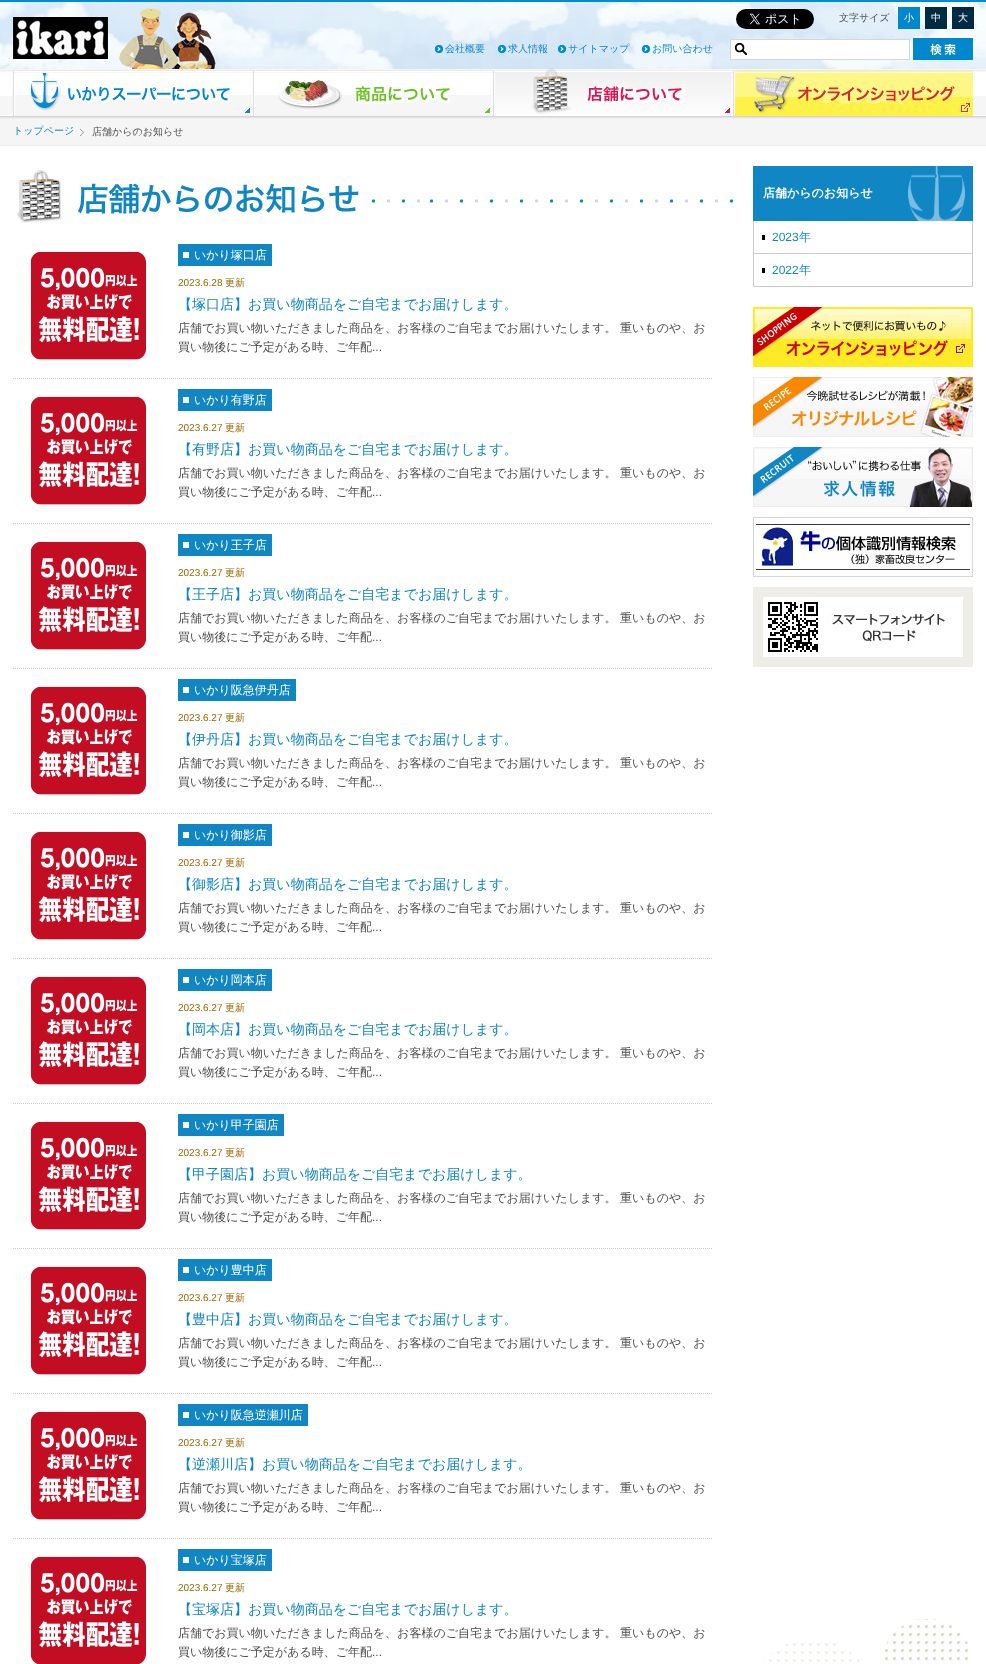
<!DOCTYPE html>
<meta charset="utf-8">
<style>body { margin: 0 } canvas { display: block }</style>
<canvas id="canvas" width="986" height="1664"></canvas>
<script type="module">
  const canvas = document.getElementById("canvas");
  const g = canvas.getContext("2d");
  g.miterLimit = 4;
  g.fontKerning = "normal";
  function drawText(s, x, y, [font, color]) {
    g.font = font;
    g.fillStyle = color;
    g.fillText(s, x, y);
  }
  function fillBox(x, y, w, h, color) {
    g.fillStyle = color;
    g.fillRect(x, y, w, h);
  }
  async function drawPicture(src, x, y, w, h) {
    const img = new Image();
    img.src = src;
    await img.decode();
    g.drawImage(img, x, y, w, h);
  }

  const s1 = ["500 10px WenQuanYi Zen Hei", "#4D4D4D"];
  const s2 = ["500 10px WenQuanYi Zen Hei", "#FFFFFF"];
  const s3 = ["500 10px WenQuanYi Zen Hei", "#1086C5"];
  const s4 = ["bold 12px WenQuanYi Zen Hei", "#FFFFFF"];
  const s5 = ["12px Liberation Sans", "#1086C5"];
  const s6 = ["500 12px WenQuanYi Zen Hei", "#1086C5"];
  const s7 = ["500 12px WenQuanYi Zen Hei", "#FFFFFF"];
  const s8 = ["10px Liberation Sans", "#996600"];
  const s9 = ["500 10px WenQuanYi Zen Hei", "#996600"];
  const s10 = ["500 14px WenQuanYi Zen Hei", "#1086C5"];
  const s11 = ["500 12px WenQuanYi Zen Hei", "#4D4D4D"];
  const s12 = ["12px Liberation Sans", "#4D4D4D"];

  fillBox(0, 0, 986, 1664, "#F5F5F5");
  await drawPicture("pic1.png", 0, 2, 986, 67);
  fillBox(0, 0, 986, 2, "#008BD5");
  await drawPicture("pic2.png", 13, 17, 95, 42);
  await drawPicture("pic3.png", 119, 8, 97, 61);
  await drawPicture("pic4.png", 736, 9, 78, 20);
  drawText("文字サイズ", 839, 21, s1);
  fillBox(898, 7, 22, 22, "#0087CE");
  drawText("小", 904, 21, s2);
  fillBox(925, 7, 22, 22, "#002B42");
  drawText("中", 931, 21, s2);
  fillBox(952, 7, 22, 22, "#002B42");
  drawText("大", 958, 21, s2);
  await drawPicture("pic5.png", 435, 45, 8, 8);
  drawText("会社概要", 445, 52, s3);
  await drawPicture("pic6.png", 498, 45, 8, 8);
  drawText("求人情報", 508, 52, s3);
  await drawPicture("pic7.png", 558, 45, 8, 8);
  drawText("サイトマップ", 568, 52, s3);
  await drawPicture("pic8.png", 642, 45, 8, 8);
  drawText("お問い合わせ", 652, 52, s3);
  fillBox(731, 40, 178, 19, "#FFFFFF");
  await drawPicture("pic9.png", 735, 43, 12, 12);
  g.strokeStyle = "#D6D6D6";
  g.strokeRect(730.5, 39.5, 179, 20);
  await drawPicture("pic10.png", 913, 38, 60, 22);
  await drawPicture("pic11.png", 0, 70, 986, 49);
  await drawPicture("pic12.png", 13, 70, 240, 46);
  await drawPicture("pic13.png", 253, 70, 240, 46);
  await drawPicture("pic14.png", 493, 68, 240, 48);
  await drawPicture("pic15.png", 733, 70, 240, 46);
  fillBox(0, 145, 986, 1, "#EDEDED");
  drawText("トップページ", 13, 134, s3);
  await drawPicture("pic16.png", 80, 129, 4, 7);
  drawText("店舗からのお知らせ", 92, 135, s1);
  fillBox(0, 146, 986, 1518, "#FFFFFF");
  await drawPicture("pic17.png", 763, 1619, 206, 44);
  fillBox(753, 166, 220, 55, "#1086C5");
  await drawPicture("pic18.png", 908, 166, 57, 55);
  drawText("店舗からのお知らせ", 763, 197, s4);
  fillBox(972, 221, 1, 66, "#CCCCCC");
  fillBox(753, 221, 1, 66, "#CCCCCC");
  fillBox(754, 253, 218, 1, "#CCCCCC");
  fillBox(762, 235, 3, 5, "#000000");
  drawText("2023", 772, 241, s5);
  drawText("年", 799, 241, s6);
  fillBox(754, 286, 218, 1, "#CCCCCC");
  fillBox(762, 268, 3, 5, "#000000");
  drawText("2022", 772, 274, s5);
  drawText("年", 799, 274, s6);
  await drawPicture("pic19.png", 753, 307, 220, 60);
  await drawPicture("pic20.png", 753, 377, 220, 60);
  await drawPicture("pic21.png", 753, 447, 220, 60);
  await drawPicture("pic22.png", 753, 517, 220, 60);
  fillBox(753, 587, 220, 80, "#EFEDE8");
  await drawPicture("pic23.png", 763, 597, 200, 60);
  await drawPicture("pic24.png", 16, 170, 717, 53);
  g.beginPath();
  g.moveTo(13, 378.5);
  g.lineTo(713, 378.5);
  g.strokeStyle = "#CCCCCC";
  g.setLineDash([1, 1]);
  g.stroke();
  await drawPicture("pic25.png", 13, 246, 150, 120);
  fillBox(178, 244, 94, 22, "#1086C5");
  drawText("いかり塚口店", 194, 259, s7);
  fillBox(183, 252, 6, 6, "#FFFFFF");
  drawText("2023.6.28", 178, 286, s8);
  drawText("更新", 225, 286, s9);
  drawText("【塚口店】お買い物商品をご自宅までお届けします。", 178, 309, s10);
  drawText("店舗でお買い物いただきました商品を、お客様のご自宅までお届けいたします。 重いものや、お", 178, 332, s11);
  drawText("買い物後にご予定がある時、ご年配", 178, 351, s11);
  drawText("...", 372, 351, s12);
  g.beginPath();
  g.moveTo(13, 523.5);
  g.lineTo(713, 523.5);
  g.stroke();
  await drawPicture("pic25.png", 13, 391, 150, 120);
  fillBox(178, 389, 94, 22, "#1086C5");
  drawText("いかり有野店", 194, 404, s7);
  fillBox(183, 397, 6, 6, "#FFFFFF");
  drawText("2023.6.27", 178, 431, s8);
  drawText("更新", 225, 431, s9);
  drawText("【有野店】お買い物商品をご自宅までお届けします。", 178, 454, s10);
  drawText("店舗でお買い物いただきました商品を、お客様のご自宅までお届けいたします。 重いものや、お", 178, 477, s11);
  drawText("買い物後にご予定がある時、ご年配", 178, 496, s11);
  drawText("...", 372, 496, s12);
  g.beginPath();
  g.moveTo(13, 668.5);
  g.lineTo(713, 668.5);
  g.stroke();
  await drawPicture("pic25.png", 13, 536, 150, 120);
  fillBox(178, 534, 94, 22, "#1086C5");
  drawText("いかり王子店", 194, 549, s7);
  fillBox(183, 542, 6, 6, "#FFFFFF");
  drawText("2023.6.27", 178, 576, s8);
  drawText("更新", 225, 576, s9);
  drawText("【王子店】お買い物商品をご自宅までお届けします。", 178, 599, s10);
  drawText("店舗でお買い物いただきました商品を、お客様のご自宅までお届けいたします。 重いものや、お", 178, 622, s11);
  drawText("買い物後にご予定がある時、ご年配", 178, 641, s11);
  drawText("...", 372, 641, s12);
  g.beginPath();
  g.moveTo(13, 813.5);
  g.lineTo(713, 813.5);
  g.stroke();
  await drawPicture("pic25.png", 13, 681, 150, 120);
  fillBox(178, 679, 118, 22, "#1086C5");
  drawText("いかり阪急伊丹店", 194, 694, s7);
  fillBox(183, 687, 6, 6, "#FFFFFF");
  drawText("2023.6.27", 178, 721, s8);
  drawText("更新", 225, 721, s9);
  drawText("【伊丹店】お買い物商品をご自宅までお届けします。", 178, 744, s10);
  drawText("店舗でお買い物いただきました商品を、お客様のご自宅までお届けいたします。 重いものや、お", 178, 767, s11);
  drawText("買い物後にご予定がある時、ご年配", 178, 786, s11);
  drawText("...", 372, 786, s12);
  g.beginPath();
  g.moveTo(13, 958.5);
  g.lineTo(713, 958.5);
  g.stroke();
  await drawPicture("pic25.png", 13, 826, 150, 120);
  fillBox(178, 824, 94, 22, "#1086C5");
  drawText("いかり御影店", 194, 839, s7);
  fillBox(183, 832, 6, 6, "#FFFFFF");
  drawText("2023.6.27", 178, 866, s8);
  drawText("更新", 225, 866, s9);
  drawText("【御影店】お買い物商品をご自宅までお届けします。", 178, 889, s10);
  drawText("店舗でお買い物いただきました商品を、お客様のご自宅までお届けいたします。 重いものや、お", 178, 912, s11);
  drawText("買い物後にご予定がある時、ご年配", 178, 931, s11);
  drawText("...", 372, 931, s12);
  g.beginPath();
  g.moveTo(13, 1103.5);
  g.lineTo(713, 1103.5);
  g.stroke();
  await drawPicture("pic25.png", 13, 971, 150, 120);
  fillBox(178, 969, 94, 22, "#1086C5");
  drawText("いかり岡本店", 194, 984, s7);
  fillBox(183, 977, 6, 6, "#FFFFFF");
  drawText("2023.6.27", 178, 1011, s8);
  drawText("更新", 225, 1011, s9);
  drawText("【岡本店】お買い物商品をご自宅までお届けします。", 178, 1034, s10);
  drawText("店舗でお買い物いただきました商品を、お客様のご自宅までお届けいたします。 重いものや、お", 178, 1057, s11);
  drawText("買い物後にご予定がある時、ご年配", 178, 1076, s11);
  drawText("...", 372, 1076, s12);
  g.beginPath();
  g.moveTo(13, 1248.5);
  g.lineTo(713, 1248.5);
  g.stroke();
  await drawPicture("pic25.png", 13, 1116, 150, 120);
  fillBox(178, 1114, 106, 22, "#1086C5");
  drawText("いかり甲子園店", 194, 1129, s7);
  fillBox(183, 1122, 6, 6, "#FFFFFF");
  drawText("2023.6.27", 178, 1156, s8);
  drawText("更新", 225, 1156, s9);
  drawText("【甲子園店】お買い物商品をご自宅までお届けします。", 178, 1179, s10);
  drawText("店舗でお買い物いただきました商品を、お客様のご自宅までお届けいたします。 重いものや、お", 178, 1202, s11);
  drawText("買い物後にご予定がある時、ご年配", 178, 1221, s11);
  drawText("...", 372, 1221, s12);
  g.beginPath();
  g.moveTo(13, 1393.5);
  g.lineTo(713, 1393.5);
  g.stroke();
  await drawPicture("pic25.png", 13, 1261, 150, 120);
  fillBox(178, 1259, 94, 22, "#1086C5");
  drawText("いかり豊中店", 194, 1274, s7);
  fillBox(183, 1267, 6, 6, "#FFFFFF");
  drawText("2023.6.27", 178, 1301, s8);
  drawText("更新", 225, 1301, s9);
  drawText("【豊中店】お買い物商品をご自宅までお届けします。", 178, 1324, s10);
  drawText("店舗でお買い物いただきました商品を、お客様のご自宅までお届けいたします。 重いものや、お", 178, 1347, s11);
  drawText("買い物後にご予定がある時、ご年配", 178, 1366, s11);
  drawText("...", 372, 1366, s12);
  g.beginPath();
  g.moveTo(13, 1538.5);
  g.lineTo(713, 1538.5);
  g.stroke();
  await drawPicture("pic25.png", 13, 1406, 150, 120);
  fillBox(178, 1404, 130, 22, "#1086C5");
  drawText("いかり阪急逆瀬川店", 194, 1419, s7);
  fillBox(183, 1412, 6, 6, "#FFFFFF");
  drawText("2023.6.27", 178, 1446, s8);
  drawText("更新", 225, 1446, s9);
  drawText("【逆瀬川店】お買い物商品をご自宅までお届けします。", 178, 1469, s10);
  drawText("店舗でお買い物いただきました商品を、お客様のご自宅までお届けいたします。 重いものや、お", 178, 1492, s11);
  drawText("買い物後にご予定がある時、ご年配", 178, 1511, s11);
  drawText("...", 372, 1511, s12);
  await drawPicture("pic26.png", 13, 1551, 150, 113);
  fillBox(178, 1549, 94, 22, "#1086C5");
  drawText("いかり宝塚店", 194, 1564, s7);
  fillBox(183, 1557, 6, 6, "#FFFFFF");
  drawText("2023.6.27", 178, 1591, s8);
  drawText("更新", 225, 1591, s9);
  drawText("【宝塚店】お買い物商品をご自宅までお届けします。", 178, 1614, s10);
  drawText("店舗でお買い物いただきました商品を、お客様のご自宅までお届けいたします。 重いものや、お", 178, 1637, s11);
  drawText("買い物後にご予定がある時、ご年配", 178, 1656, s11);
  drawText("...", 372, 1656, s12);
</script>
